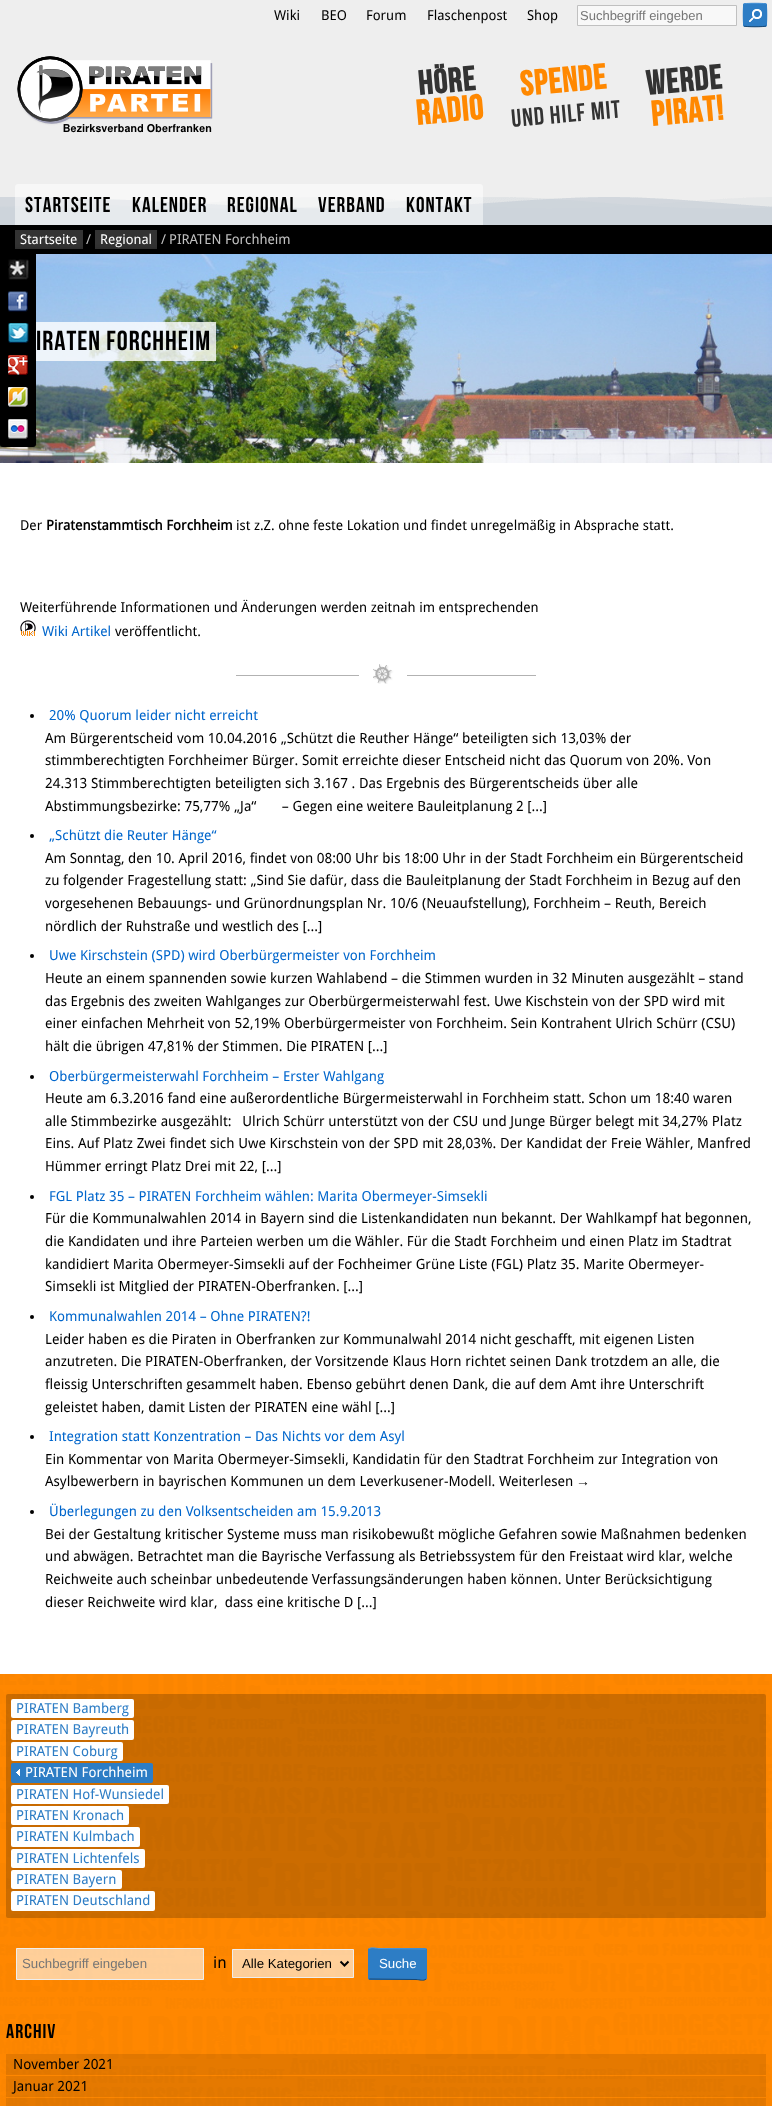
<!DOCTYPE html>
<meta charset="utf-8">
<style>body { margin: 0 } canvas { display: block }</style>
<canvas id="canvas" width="772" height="2106"></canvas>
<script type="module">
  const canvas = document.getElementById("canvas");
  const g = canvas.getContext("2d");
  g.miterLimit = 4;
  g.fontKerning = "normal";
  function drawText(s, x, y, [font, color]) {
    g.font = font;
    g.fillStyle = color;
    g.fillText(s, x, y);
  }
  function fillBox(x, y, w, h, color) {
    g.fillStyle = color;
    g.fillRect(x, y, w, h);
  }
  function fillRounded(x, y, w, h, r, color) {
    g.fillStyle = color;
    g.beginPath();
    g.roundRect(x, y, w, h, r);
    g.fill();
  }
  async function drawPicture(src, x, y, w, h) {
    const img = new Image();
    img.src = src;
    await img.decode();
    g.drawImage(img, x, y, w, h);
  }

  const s1 = ["13.7px Droid Sans", "#000000"];
  const s2 = ["13px Liberation Sans", "#757575"];
  const s3 = ["21.5px Bebas Neue", "#000000"];
  const s4 = ["13.5px Droid Sans", "#FFFFFF"];
  const s5 = ["13.5px Droid Sans", "#C0C0C0"];
  const s6 = ["13.7px Droid Sans", "#C0C0C0"];
  const s7 = ["27.5px Bebas Neue", "#000000"];
  const s8 = ["bold 13.85px Droid Sans", "#000000"];
  const s9 = ["13.7px Droid Sans", "#0066CC"];
  const s10 = ["13.85px Droid Sans", "#0066CC"];
  const s11 = ["14px Droid Sans", "#000000"];
  const s12 = ["14px Liberation Serif", "#000000"];
  const s13 = ["13.85px Droid Sans", "#2D7DC5"];
  const s14 = ["13.85px Droid Sans", "#FFFFFF"];
  const s15 = ["13.25px Liberation Sans", "#757575"];
  const s16 = ["16px Droid Sans", "#000000"];
  const s17 = ["13.25px Liberation Sans", "#000000"];
  const s18 = ["13.25px Liberation Sans", "#FFFFFF"];
  const s19 = ["20px Bebas Neue", "#000000"];

  fillBox(0, 0, 772, 2106, "#FFFFFF");
  await drawPicture("pic1.png", 0, 1674, 772, 432);
  fillBox(0, 0, 772, 225, "#EEEEEE");
  await drawPicture("pic2.png", 0, 197, 772, 28);
  drawText("Wiki", 274, 20, s1);
  drawText("BEO", 321, 20, s1);
  drawText("Forum", 366, 20, s1);
  drawText("Flaschenpost", 427, 20, s1);
  drawText("Shop", 527, 20, s1);
  g.fillStyle = "#F8F8F8";
  g.beginPath();
  g.rect(577.5, 5.5, 159, 20);
  g.fill();
  g.strokeStyle = "#C0C0C0";
  g.stroke();
  drawText("Suchbegriff eingeben", 580, 20, s2);
  fillRounded(743, 3, 24, 24, 2, "#2D7DC5");
  await drawPicture("pic3.png", 749, 9, 13, 13);
  g.beginPath();
  g.moveTo(744, 4);
  g.bezierCurveTo(745, 3, 765, 3, 766, 4);
  g.strokeStyle = "#4E96D7";
  g.stroke();
  g.beginPath();
  g.moveTo(766, 4);
  g.bezierCurveTo(767, 5, 767, 25, 766, 26);
  g.strokeStyle = "#2D7DC5";
  g.stroke();
  g.beginPath();
  g.moveTo(766, 26);
  g.bezierCurveTo(765, 27, 745, 27, 744, 26);
  g.strokeStyle = "#1A4872";
  g.stroke();
  g.beginPath();
  g.moveTo(744, 26);
  g.bezierCurveTo(743, 25, 743, 5, 744, 4);
  g.strokeStyle = "#2D7DC5";
  g.stroke();
  await drawPicture("pic4.png", 17, 56, 196, 77);
  g.letterSpacing = "1px";
  g.font = "bold 34px Bebas Neue";
  g.fillStyle = "#333333";
  g.save();
  g.translate(419, 95);
  g.rotate(-5 * Math.PI / 180);
  g.fillText("Höre", 0, 0);
  g.restore();
  g.font = "bold 35px Bebas Neue";
  g.fillStyle = "#FF8800";
  g.save();
  g.translate(417, 125);
  g.rotate(-5 * Math.PI / 180);
  g.fillText("Radio", 0, 0);
  g.restore();
  g.save();
  g.translate(521, 96);
  g.rotate(-5 * Math.PI / 180);
  g.fillText("Spende", 0, 0);
  g.restore();
  g.font = "25px Bebas Neue";
  g.fillStyle = "#333333";
  g.save();
  g.translate(512, 127);
  g.rotate(-5 * Math.PI / 180);
  g.fillText("und hilf mit", 0, 0);
  g.restore();
  g.font = "bold 34px Bebas Neue";
  g.save();
  g.translate(647, 95);
  g.rotate(-5 * Math.PI / 180);
  g.fillText("Werde", 0, 0);
  g.restore();
  g.font = "bold 35px Bebas Neue";
  g.fillStyle = "#FF8800";
  g.save();
  g.translate(652, 126);
  g.rotate(-5 * Math.PI / 180);
  g.fillText("Pirat!", 0, 0);
  g.restore();
  g.fillStyle = "rgba(255, 255, 255, 0.5)";
  g.beginPath();
  g.roundRect(15, 184, 468, 41, [3, 3, 0, 0]);
  g.fill();
  drawText("Startseite", 25, 212, s3);
  drawText("Kalender", 132, 212, s3);
  drawText("Regional", 227, 212, s3);
  drawText("Verband", 318, 212, s3);
  drawText("Kontakt", 406, 212, s3);
  fillBox(0, 225, 772, 29, "#000000");
  fillBox(15, 230, 68, 19, "#333333");
  g.letterSpacing = "0px";
  drawText("Startseite", 20, 244, s4);
  drawText("/", 86, 244, s5);
  fillBox(95, 230, 62, 19, "#333333");
  drawText("Regional", 100, 244, s4);
  drawText("/", 161, 244, s5);
  drawText("PIRATEN Forchheim", 169, 244, s6);
  g.save();
  g.beginPath();
  g.rect(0, 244, 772, 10);
  g.clip();
  g.fillStyle = "rgba(0, 0, 0, 0.8)";
  g.filter = "blur(5px)";
  g.beginPath();
  g.rect(0, 254, 772, 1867);
  g.fill();
  g.filter = "none";
  g.restore();
  await drawPicture("pic11.png", 0, 254, 772, 209);
  fillRounded(0, 251, 36, 196, 3, "#000000");
  await drawPicture("pic5.png", 8, 259, 21, 21);
  await drawPicture("pic6.png", 8, 291, 20, 21);
  await drawPicture("pic7.png", 8, 323, 21, 20);
  await drawPicture("pic8.png", 8, 355, 20, 20);
  await drawPicture("pic9.png", 8, 387, 20, 20);
  await drawPicture("pic10.png", 8, 419, 20, 20);
  fillBox(0, 1674, 772, 432, "rgba(255, 136, 0, 0.7)");
  fillBox(36, 322, 180, 39, "rgba(255, 255, 255, 0.8)");
  g.letterSpacing = "1px";
  drawText("IRATEN Forchheim", 36, 350, s7);
  g.letterSpacing = "0px";
  drawText("Der", 20, 530, s1);
  drawText("Piratenstammtisch Forchheim", 46, 530, s8);
  drawText("ist z.Z. ohne feste Lokation und findet unregelmäßig in Absprache statt.", 236, 530, s1);
  drawText("Weiterführende Informationen und Änderungen werden zeitnah im entsprechenden", 20, 612, s1);
  await drawPicture("pic12.png", 20, 620, 16, 16);
  drawText("Wiki Artikel", 42, 636, s9);
  drawText("veröffentlicht.", 115, 636, s1);
  await drawPicture("pic13.png", 236, 664, 300, 20);
  g.beginPath();
  g.arc(32, 716, 2, 0, Math.PI * 2);
  g.fill();
  drawText("20% Quorum leider nicht erreicht", 49, 720, s10);
  drawText("Am Bürgerentscheid vom 10.04.2016 „Schützt die Reuther Hänge“ beteiligten sich 13,03% der", 45, 743, s11);
  drawText("stimmberechtigten Forchheimer Bürger. Somit erreichte dieser Entscheid nicht das Quorum von 20%. Von", 45, 765, s11);
  drawText("24.313 Stimmberechtigten beteiligten sich 3.167 . Das Ergebnis des Bürgerentscheids über alle", 45, 788, s11);
  drawText("Abstimmungsbezirke: 75,77% „Ja“       – Gegen eine weitere Bauleitplanung 2 […]", 45, 811, s11);
  g.beginPath();
  g.arc(32, 836, 2, 0, Math.PI * 2);
  g.fill();
  drawText("„Schützt die Reuter Hänge“", 49, 840, s10);
  drawText("Am Sonntag, den 10. April 2016, findet von 08:00 Uhr bis 18:00 Uhr in der Stadt Forchheim ein Bürgerentscheid", 45, 863, s11);
  drawText("zu folgender Fragestellung statt: „Sind Sie dafür, dass die Bauleitplanung der Stadt Forchheim in Bezug auf den", 45, 885, s11);
  drawText("vorgesehenen Bebauungs- und Grünordnungsplan Nr. 10/6 (Neuaufstellung), Forchheim – Reuth, Bereich", 45, 908, s11);
  drawText("nördlich der Ruhstraße und westlich des […]", 45, 931, s11);
  g.beginPath();
  g.arc(32, 956, 2, 0, Math.PI * 2);
  g.fill();
  drawText("Uwe Kirschstein (SPD) wird Oberbürgermeister von Forchheim", 49, 960, s10);
  drawText("Heute an einem spannenden sowie kurzen Wahlabend – die Stimmen wurden in 32 Minuten ausgezählt – stand", 45, 983, s11);
  drawText("das Ergebnis des zweiten Wahlganges zur Oberbürgermeisterwahl fest. Uwe Kischstein von der SPD wird mit", 45, 1006, s11);
  drawText("einer einfachen Mehrheit von 52,19% Oberbürgermeister von Forchheim. Sein Kontrahent Ulrich Schürr (CSU)", 45, 1028, s11);
  drawText("hält die übrigen 47,81% der Stimmen. Die PIRATEN […]", 45, 1051, s11);
  g.beginPath();
  g.arc(32, 1077, 2, 0, Math.PI * 2);
  g.fill();
  drawText("Oberbürgermeisterwahl Forchheim – Erster Wahlgang", 49, 1081, s10);
  drawText("Heute am 6.3.2016 fand eine außerordentliche Bürgermeisterwahl in Forchheim statt. Schon um 18:40 waren", 45, 1103, s11);
  drawText("alle Stimmbezirke ausgezählt:   Ulrich Schürr unterstützt von der CSU und Junge Bürger belegt mit 34,27% Platz", 45, 1126, s11);
  drawText("Eins. Auf Platz Zwei findet sich Uwe Kirschstein von der SPD mit 28,03%. Der Kandidat der Freie Wähler, Manfred", 45, 1148, s11);
  drawText("Hümmer erringt Platz Drei mit 22, […]", 45, 1171, s11);
  g.beginPath();
  g.arc(32, 1197, 2, 0, Math.PI * 2);
  g.fill();
  drawText("FGL Platz 35 – PIRATEN Forchheim wählen: Marita Obermeyer-Simsekli", 49, 1201, s10);
  drawText("Für die Kommunalwahlen 2014 in Bayern sind die Listenkandidaten nun bekannt. Der Wahlkampf hat begonnen,", 45, 1223, s11);
  drawText("die Kandidaten und ihre Parteien werben um die Wähler. Für die Stadt Forchheim und einen Platz im Stadtrat", 45, 1246, s11);
  drawText("kandidiert Marita Obermeyer-Simsekli auf der Fochheimer Grüne Liste (FGL) Platz 35. Marite Obermeyer-", 45, 1269, s11);
  drawText("Simsekli ist Mitglied der PIRATEN-Oberfranken. […]", 45, 1291, s11);
  g.beginPath();
  g.arc(32, 1317, 2, 0, Math.PI * 2);
  g.fill();
  drawText("Kommunalwahlen 2014 – Ohne PIRATEN?!", 49, 1321, s10);
  drawText("Leider haben es die Piraten in Oberfranken zur Kommunalwahl 2014 nicht geschafft, mit eigenen Listen", 45, 1344, s11);
  drawText("anzutreten. Die PIRATEN-Oberfranken, der Vorsitzende Klaus Horn richtet seinen Dank trotzdem an alle, die", 45, 1366, s11);
  drawText("fleissig Unterschriften gesammelt haben. Ebenso gebührt denen Dank, die auf dem Amt ihre Unterschrift", 45, 1389, s11);
  drawText("geleistet haben, damit Listen der PIRATEN eine wähl […]", 45, 1412, s11);
  g.beginPath();
  g.arc(32, 1437, 2, 0, Math.PI * 2);
  g.fill();
  drawText("Integration statt Konzentration – Das Nichts vor dem Asyl", 49, 1441, s10);
  drawText("Ein Kommentar von Marita Obermeyer-Simsekli, Kandidatin für den Stadtrat Forchheim zur Integration von", 45, 1464, s11);
  drawText("Asylbewerbern in bayrischen Kommunen un dem Leverkusener-Modell. Weiterlesen", 45, 1486, s11);
  drawText("→", 576, 1486, s12);
  g.beginPath();
  g.arc(32, 1512, 2, 0, Math.PI * 2);
  g.fill();
  drawText("Überlegungen zu den Volksentscheiden am 15.9.2013", 49, 1516, s10);
  drawText("Bei der Gestaltung kritischer Systeme muss man risikobewußt mögliche Gefahren sowie Maßnahmen bedenken", 45, 1539, s11);
  drawText("und abwägen. Betrachtet man die Bayrische Verfassung als Betriebssystem für den Freistaat wird klar, welche", 45, 1561, s11);
  drawText("Reichweite auch scheinbar unbedeutende Verfassungsänderungen haben können. Unter Berücksichtigung", 45, 1584, s11);
  drawText("dieser Reichweite wird klar,  dass eine kritische D […]", 45, 1607, s11);
  fillRounded(6, 1694, 760, 224, 2, "rgba(0, 0, 0, 0.2)");
  fillRounded(11, 1699, 123, 19, 2, "#FFFFFF");
  drawText("PIRATEN Bamberg", 16, 1713, s13);
  fillRounded(11, 1720, 123, 20, 2, "#FFFFFF");
  drawText("PIRATEN Bayreuth", 16, 1734, s13);
  fillRounded(11, 1742, 112, 19, 2, "#FFFFFF");
  drawText("PIRATEN Coburg", 16, 1756, s13);
  fillRounded(11, 1763, 142, 20, 2, "#2D7DC5");
  await drawPicture("pic14.png", 16, 1769, 4, 7);
  drawText("PIRATEN Forchheim", 25, 1777, s14);
  fillRounded(11, 1785, 158, 19, 2, "#FFFFFF");
  drawText("PIRATEN Hof-Wunsiedel", 16, 1799, s13);
  fillRounded(11, 1806, 118, 19, 2, "#FFFFFF");
  drawText("PIRATEN Kronach", 16, 1820, s13);
  fillRounded(11, 1827, 129, 20, 2, "#FFFFFF");
  drawText("PIRATEN Kulmbach", 16, 1841, s13);
  fillRounded(11, 1849, 134, 19, 2, "#FFFFFF");
  drawText("PIRATEN Lichtenfels", 16, 1863, s13);
  fillRounded(11, 1870, 111, 19, 2, "#FFFFFF");
  drawText("PIRATEN Bayern", 16, 1884, s13);
  fillRounded(11, 1891, 144, 20, 2, "#FFFFFF");
  drawText("PIRATEN Deutschland", 16, 1905, s13);
  g.fillStyle = "rgba(255, 255, 255, 0.6)";
  g.beginPath();
  g.rect(16.5, 1948.5, 187, 31);
  g.fill();
  g.strokeStyle = "#EEEEEE";
  g.stroke();
  drawText("Suchbegriff eingeben", 22, 1968, s15);
  drawText("in", 213, 1968, s16);
  g.fillStyle = "rgba(255, 255, 255, 0.6)";
  g.beginPath();
  g.rect(232.5, 1949.5, 121, 28);
  g.fill();
  g.stroke();
  g.beginPath();
  g.moveTo(340.5, 1961.5);
  g.lineTo(344.5, 1965.5);
  g.lineTo(348.5, 1961.5);
  g.strokeStyle = "#000000";
  g.lineWidth = 2;
  g.stroke();
  drawText("Alle Kategorien", 242, 1968, s17);
  fillRounded(368, 1948, 59, 32, 2, "#2D7DC5");
  g.beginPath();
  g.moveTo(369, 1949);
  g.bezierCurveTo(371.5, 1946.5, 375.5, 1948.5, 379, 1948.5);
  g.lineTo(426, 1949);
  g.strokeStyle = "#4E96D7";
  g.lineWidth = 1;
  g.stroke();
  g.beginPath();
  g.moveTo(426, 1949);
  g.lineTo(426.5, 1950);
  g.lineTo(426.5, 1978);
  g.lineTo(426, 1979);
  g.strokeStyle = "#2D7DC5";
  g.stroke();
  g.beginPath();
  g.moveTo(426, 1979);
  g.bezierCurveTo(423.5, 1981.5, 419.5, 1979.5, 416, 1979.5);
  g.lineTo(369, 1979);
  g.strokeStyle = "#1A4872";
  g.stroke();
  g.beginPath();
  g.moveTo(369, 1979);
  g.lineTo(368.5, 1978);
  g.lineTo(368.5, 1950);
  g.lineTo(369, 1949);
  g.strokeStyle = "#2D7DC5";
  g.stroke();
  drawText("Suche", 379, 1968, s18);
  g.letterSpacing = "1px";
  drawText("Archiv", 6, 2038, s19);
  fillBox(6, 2054, 760, 21, "rgba(0, 0, 0, 0.1)");
  g.letterSpacing = "0px";
  drawText("November 2021", 13, 2069, s11);
  fillBox(6, 2076, 760, 21, "rgba(0, 0, 0, 0.1)");
  drawText("Januar 2021", 13, 2091, s11);
  fillBox(6, 2098, 760, 8, "rgba(0, 0, 0, 0.1)");
</script>
